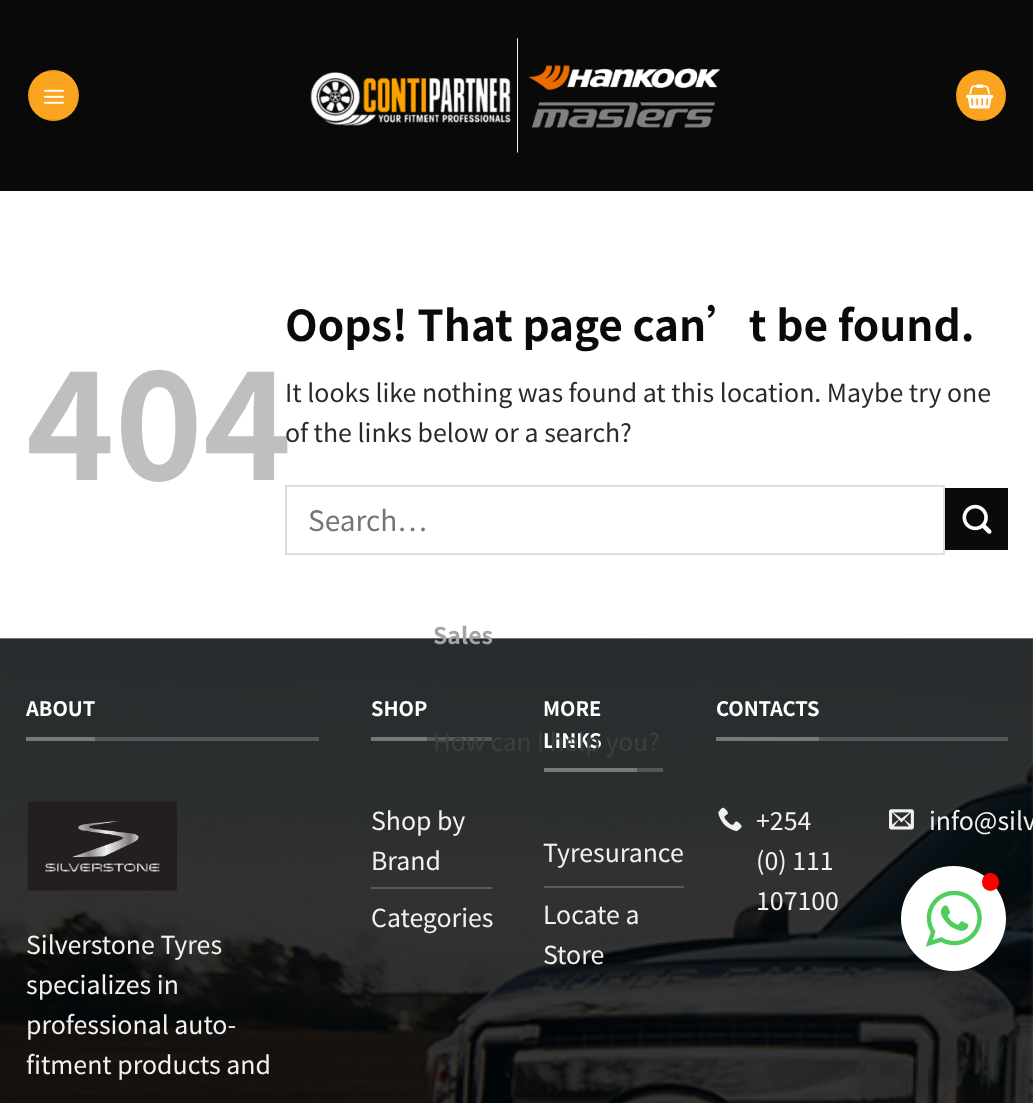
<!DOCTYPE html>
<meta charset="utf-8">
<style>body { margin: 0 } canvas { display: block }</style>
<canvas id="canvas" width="1033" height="1103"></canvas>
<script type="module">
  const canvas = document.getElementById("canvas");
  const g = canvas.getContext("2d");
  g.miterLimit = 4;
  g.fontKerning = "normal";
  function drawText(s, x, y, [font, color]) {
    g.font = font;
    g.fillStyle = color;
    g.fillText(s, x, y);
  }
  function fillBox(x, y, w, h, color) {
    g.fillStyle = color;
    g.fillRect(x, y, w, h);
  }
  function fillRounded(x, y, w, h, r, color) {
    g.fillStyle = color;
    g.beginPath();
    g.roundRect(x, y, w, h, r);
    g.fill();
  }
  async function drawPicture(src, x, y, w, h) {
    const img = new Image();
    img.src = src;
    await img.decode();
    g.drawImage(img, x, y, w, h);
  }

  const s1 = ["bold 150px Noto Sans HK", "#C0BFBF"];
  const s2 = ["bold 42.4px Noto Sans HK", "#0A0A0A"];
  const s3 = ["24.9px Noto Sans HK", "#2D2929"];
  const s4 = ["28px Noto Sans HK", "#757575"];
  const s5 = ["bold 20px Noto Sans HK", "#FFFFFF"];
  const s6 = ["bold 23px Noto Sans HK", "#A2A4A5"];
  const s7 = ["24.5px Noto Sans HK", "#3D4041"];
  const s8 = ["24.9px Noto Sans HK", "#F1F1F1"];

  fillBox(0, 0, 1033, 1103, "#FFFFFF");
  fillBox(0, 0, 1033, 191, "#0A0909");
  g.fillStyle = "#FBA41F";
  g.beginPath();
  g.arc(53.5, 95.5, 25.5, 0, Math.PI * 2);
  g.fill();
  g.strokeStyle = "rgba(0, 0, 0, 0.05)";
  g.lineWidth = 2;
  g.strokeRect(29, 71, 49, 49);
  await drawPicture("pic1.png", 44, 89, 20, 15);
  await drawPicture("pic2.png", 310, 38, 411, 115);
  fillRounded(956, 70, 50, 51, 25, "#FBA41F");
  g.strokeRect(957, 71, 48, 49);
  await drawPicture("pic3.png", 966, 84, 28, 25);
  drawText("404", 26, 480, s1);
  drawText("Oops! That page can’t be found.", 285, 341, s2);
  drawText("It looks like nothing was found at this location. Maybe try one", 285, 402, s3);
  drawText("of the links below or a search?", 285, 442, s3);
  g.strokeStyle = "#DDDDDD";
  g.strokeRect(286, 486, 658, 68);
  drawText("Search…", 308, 531, s4);
  fillBox(945, 488, 63, 62, "#0A0A0A");
  await drawPicture("pic4.png", 962, 504, 30, 30);
  await drawPicture("pic9.png", 0, 638, 1033, 465);
  fillBox(95, 737, 224, 4, "#555859");
  fillBox(26, 737, 69, 4, "#77797A");
  drawText("ABOUT", 26, 716, s5);
  drawText("Sales", 433, 644, s6);
  fillBox(427, 737, 65, 4, "#555858");
  drawText("LINKS", 543, 748, s5);
  drawText("How can I help you?", 433, 751, s7);
  g.fillStyle = "#FFFFFF";
  g.beginPath();
  g.arc(953.5, 918.5, 52.5, 0, Math.PI * 2);
  g.fill();
  fillRounded(982, 873, 17, 18, 8.5, "#FF0000");
  await drawPicture("pic5.png", 926, 891, 56, 56);
  await drawPicture("pic6.png", 27, 801, 150, 90);
  drawText("Silverstone Tyres", 26, 954, s8);
  drawText("specializes in", 26, 994, s8);
  drawText("professional auto-", 26, 1034, s8);
  drawText("fitment products and", 26, 1074, s8);
  fillBox(371, 737, 56, 4, "#777979");
  drawText("SHOP", 371, 716, s5);
  fillBox(371, 887, 121, 2, "#5A5A5A");
  drawText("Shop by", 371, 830, s8);
  drawText("Brand", 371, 870, s8);
  drawText("Categories", 371, 927, s8);
  fillBox(637, 768, 26, 4, "#555859");
  fillBox(544, 768, 93, 4, "#77797A");
  drawText("MORE", 543, 716, s5);
  fillBox(544, 886, 140, 2, "#5A5A5A");
  drawText("Tyresurance", 543, 862, s8);
  drawText("Locate a", 543, 924, s8);
  drawText("Store", 543, 964, s8);
  fillBox(819, 737, 189, 4, "#545758");
  fillBox(716, 737, 103, 4, "#767979");
  drawText("CONTACTS", 716, 716, s5);
  await drawPicture("pic7.png", 718, 807, 24, 24);
  drawText("+254", 756, 830, s8);
  drawText("(0) 111", 756, 870, s8);
  drawText("107100", 756, 910, s8);
  await drawPicture("pic8.png", 889, 809, 25, 21);
  drawText("info@silv", 929, 830, s8);
</script>
